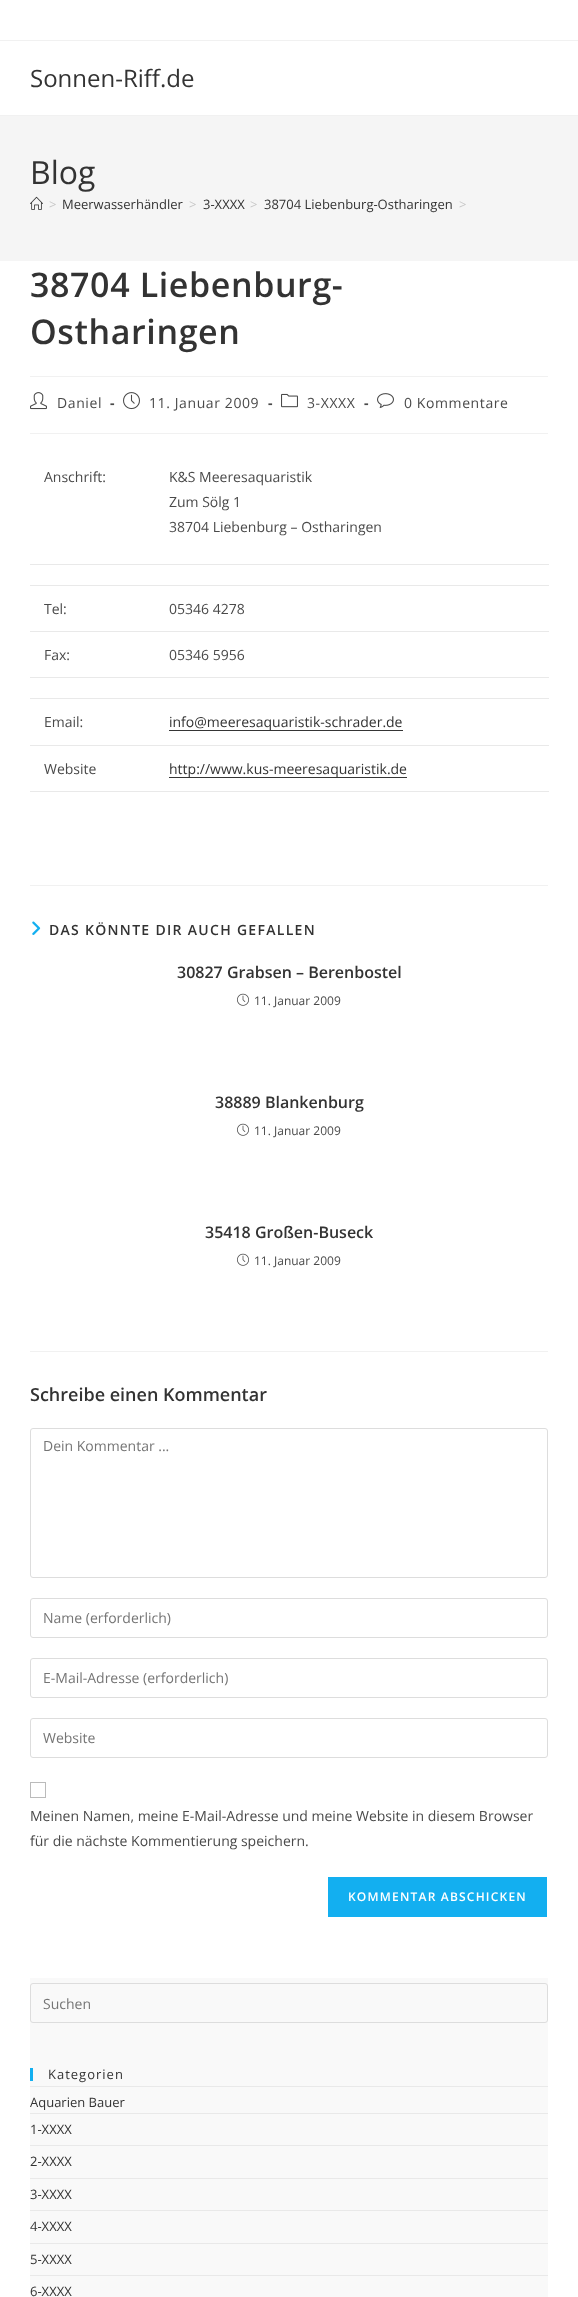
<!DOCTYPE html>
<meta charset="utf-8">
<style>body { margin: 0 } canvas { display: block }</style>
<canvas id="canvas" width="578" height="2297"></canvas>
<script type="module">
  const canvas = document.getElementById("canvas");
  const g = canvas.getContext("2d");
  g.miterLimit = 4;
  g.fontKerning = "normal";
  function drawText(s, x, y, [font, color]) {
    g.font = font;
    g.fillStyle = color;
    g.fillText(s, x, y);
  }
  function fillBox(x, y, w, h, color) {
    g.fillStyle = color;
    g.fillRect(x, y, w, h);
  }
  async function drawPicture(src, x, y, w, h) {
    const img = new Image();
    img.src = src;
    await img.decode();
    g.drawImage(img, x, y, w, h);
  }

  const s1 = ["24px Open Sans", "#333333"];
  const s2 = ["32px Open Sans", "#333333"];
  const s3 = ["13px Open Sans", "#C6C6C6"];
  const s4 = ["13px Open Sans", "#333333"];
  const s5 = ["600 34px Open Sans", "#333333"];
  const s6 = ["14px Open Sans", "#4A4A4A"];
  const s7 = ["bold 14px Open Sans", "#4A4A4A"];
  const s8 = ["14px Open Sans", "#333333"];
  const s9 = ["600 14px Open Sans", "#333333"];
  const s10 = ["600 16px Open Sans", "#333333"];
  const s11 = ["12px Open Sans", "#4A4A4A"];
  const s12 = ["600 18px Open Sans", "#333333"];
  const s13 = ["14px Open Sans", "#757575"];
  const s14 = ["600 12px Open Sans", "#FFFFFF"];

  fillBox(0, 0, 578, 2297, "#FFFFFF");
  fillBox(0, 40, 578, 1, "#F1F1F1");
  fillBox(0, 115, 578, 1, "#F1F1F1");
  drawText("Sonnen-Riff.de", 30, 87, s1);
  fillBox(0, 116, 578, 145, "#F5F5F5");
  drawText("Blog", 30, 184, s2);
  await drawPicture("pic1.png", 30, 196, 13, 14);
  drawText(">", 49, 209, s3);
  drawText("Meerwasserhändler", 62, 209, s4);
  drawText(">", 189, 209, s3);
  drawText("3-XXXX", 203, 209, s4);
  drawText(">", 250, 209, s3);
  drawText("38704 Liebenburg-Ostharingen", 264, 209, s4);
  drawText(">", 459, 209, s3);
  fillBox(30, 376, 518, 1, "#F1F1F1");
  g.letterSpacing = "0.6px";
  drawText("38704 Liebenburg-", 30, 297, s5);
  drawText("Ostharingen", 30, 344, s5);
  fillBox(30, 433, 518, 1, "#F1F1F1");
  await drawPicture("pic2.png", 30, 392, 17, 18);
  drawText("Daniel", 57, 408, s6);
  drawText("-", 110, 408, s7);
  await drawPicture("pic3.png", 123, 392, 17, 18);
  drawText("11. Januar 2009", 149, 408, s6);
  drawText("-", 268, 408, s7);
  await drawPicture("pic4.png", 281, 393, 17, 15);
  drawText("3-XXXX", 307, 408, s6);
  drawText("-", 364, 408, s7);
  await drawPicture("pic5.png", 377, 393, 17, 15);
  drawText("0 Kommentare", 404, 408, s6);
  g.letterSpacing = "0px";
  drawText("Anschrift:", 44, 482, s6);
  fillBox(30, 564, 519, 1, "#E9E9E9");
  drawText("K&S Meeresaquaristik", 169, 482, s6);
  drawText("Zum Sölg 1", 169, 507, s6);
  drawText("38704 Liebenburg – Ostharingen", 169, 532, s6);
  fillBox(30, 585, 519, 1, "#E9E9E9");
  drawText("Tel:", 44, 614, s6);
  fillBox(30, 631, 519, 1, "#E9E9E9");
  drawText("05346 4278", 169, 614, s6);
  drawText("Fax:", 44, 660, s6);
  fillBox(30, 677, 519, 1, "#E9E9E9");
  drawText("05346 5956", 169, 660, s6);
  fillBox(30, 698, 519, 1, "#E9E9E9");
  drawText("Email:", 44, 727, s6);
  fillBox(30, 745, 519, 1, "#E9E9E9");
  fillBox(169, 730, 234, 1, "#353535");
  drawText("info@meeresaquaristik-schrader.de", 169, 727, s8);
  drawText("Website", 44, 774, s6);
  fillBox(30, 791, 519, 1, "#E9E9E9");
  fillBox(169, 777, 238, 1, "#353535");
  drawText("http://www.kus-meeresaquaristik.de", 169, 774, s8);
  fillBox(30, 885, 518, 1, "#F1F1F1");
  await drawPicture("pic6.png", 32, 921, 9, 14);
  g.letterSpacing = "1.3px";
  drawText("DAS KÖNNTE DIR AUCH GEFALLEN", 49, 935, s9);
  g.letterSpacing = "0px";
  drawText("30827 Grabsen – Berenbostel", 177, 978, s10);
  await drawPicture("pic7.png", 237, 993, 12, 13);
  drawText("11. Januar 2009", 254, 1005, s11);
  drawText("38889 Blankenburg", 215, 1108, s10);
  await drawPicture("pic7.png", 237, 1123, 12, 13);
  drawText("11. Januar 2009", 254, 1135, s11);
  drawText("35418 Großen-Buseck", 205, 1238, s10);
  await drawPicture("pic7.png", 237, 1253, 12, 13);
  drawText("11. Januar 2009", 254, 1265, s11);
  fillBox(30, 1351, 518, 1, "#F1F1F1");
  drawText("Schreibe einen Kommentar", 30, 1401, s12);
  g.beginPath();
  g.roundRect(30.5, 1428.5, 517, 149, 2.5);
  g.strokeStyle = "#DDDDDD";
  g.stroke();
  drawText("Dein Kommentar ...", 43, 1451, s13);
  g.beginPath();
  g.roundRect(30.5, 1598.5, 517, 39, 2.5);
  g.stroke();
  drawText("Name (erforderlich)", 43, 1623, s13);
  g.beginPath();
  g.roundRect(30.5, 1658.5, 517, 39, 2.5);
  g.stroke();
  drawText("E-Mail-Adresse (erforderlich)", 43, 1683, s13);
  g.beginPath();
  g.roundRect(30.5, 1718.5, 517, 39, 2.5);
  g.stroke();
  drawText("Website", 43, 1743, s13);
  g.strokeStyle = "#BBBBBB";
  g.strokeRect(30.5, 1782.5, 15, 15);
  drawText("Meinen Namen, meine E-Mail-Adresse und meine Website in diesem Browser", 30, 1821, s6);
  drawText("für die nächste Kommentierung speichern.", 30, 1846, s6);
  fillBox(328, 1877, 219, 40, "#13AFF0");
  g.letterSpacing = "1.2px";
  drawText("KOMMENTAR ABSCHICKEN", 348, 1901, s14);
  fillBox(30, 1978, 518, 319, "#F9F9F9");
  g.beginPath();
  g.roundRect(30.5, 1983.5, 517, 39, 2.5);
  g.strokeStyle = "#DDDDDD";
  g.stroke();
  g.letterSpacing = "0px";
  drawText("Suchen", 43, 2009, s13);
  fillBox(30, 2068, 3, 13, "#13AFF0");
  g.letterSpacing = "1px";
  drawText("Kategorien", 48, 2079, s4);
  fillBox(30, 2086, 518, 1, "#E9E9E9");
  g.letterSpacing = "0px";
  drawText("Aquarien Bauer", 30, 2107, s4);
  fillBox(30, 2113, 518, 1, "#E9E9E9");
  fillBox(30, 2145, 518, 1, "#E9E9E9");
  drawText("1-XXXX", 30, 2134, s4);
  fillBox(30, 2178, 518, 1, "#E9E9E9");
  drawText("2-XXXX", 30, 2166, s4);
  fillBox(30, 2210, 518, 1, "#E9E9E9");
  drawText("3-XXXX", 30, 2199, s4);
  fillBox(30, 2243, 518, 1, "#E9E9E9");
  drawText("4-XXXX", 30, 2231, s4);
  fillBox(30, 2275, 518, 1, "#E9E9E9");
  drawText("5-XXXX", 30, 2264, s4);
  drawText("6-XXXX", 30, 2296, s4);
</script>
